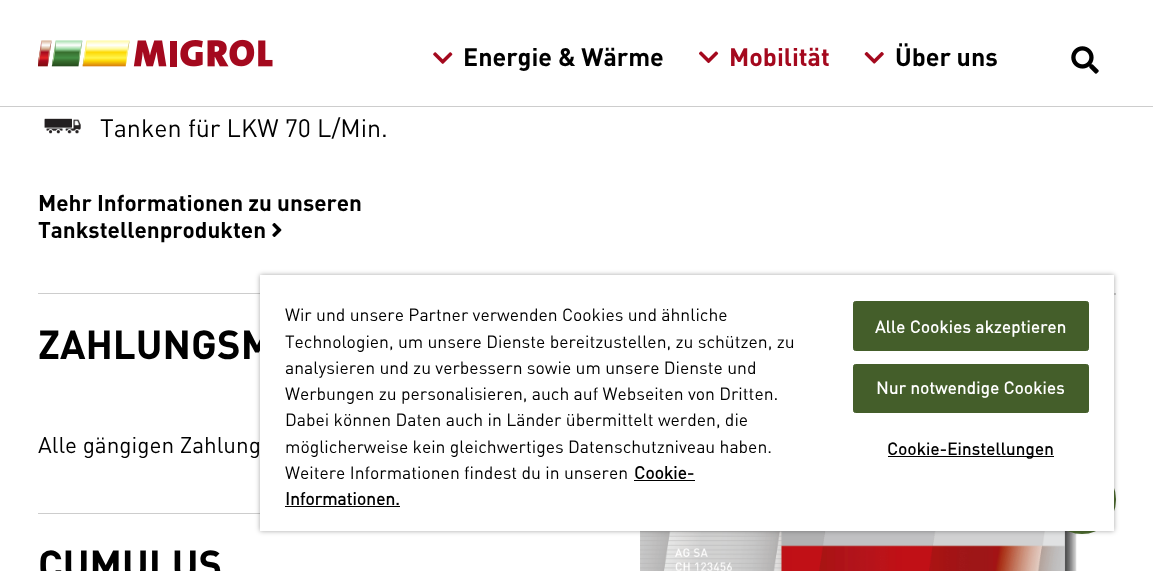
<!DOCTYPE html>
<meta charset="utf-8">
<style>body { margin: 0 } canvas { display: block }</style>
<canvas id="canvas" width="1153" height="571"></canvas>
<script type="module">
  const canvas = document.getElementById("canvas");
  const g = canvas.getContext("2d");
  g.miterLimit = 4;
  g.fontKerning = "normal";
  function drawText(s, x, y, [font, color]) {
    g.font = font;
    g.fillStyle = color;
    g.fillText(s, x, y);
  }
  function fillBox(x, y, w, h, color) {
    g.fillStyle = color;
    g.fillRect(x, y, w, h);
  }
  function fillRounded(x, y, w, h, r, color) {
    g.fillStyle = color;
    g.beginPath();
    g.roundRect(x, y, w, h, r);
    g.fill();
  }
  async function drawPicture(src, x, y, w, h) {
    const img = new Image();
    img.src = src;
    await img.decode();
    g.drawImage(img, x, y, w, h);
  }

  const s1 = ["bold 25px DIN", "#000000"];
  const s2 = ["bold 25px DIN", "#A4091E"];
  const s3 = ["25px DIN", "#000000"];
  const s4 = ["bold 22.5px DIN", "#000000"];
  const s5 = ["bold 40px DIN", "#000000"];
  const s6 = ["22.5px DIN", "#000000"];
  const s7 = ["17.5px DIN", "#000000"];
  const s8 = ["bold 17.5px 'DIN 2'", "#000000"];
  const s9 = ["bold 17px 'DIN 2'", "#FFFFFF"];
  const s10 = ["bold 17px 'DIN 2'", "#000000"];

  fillBox(0, 0, 1153, 571, "#FFFFFF");
  fillBox(0, 106, 1153, 1, "#CDCDCD");
  await drawPicture("pic1.png", 38, 39, 235, 28);
  await drawPicture("pic2.png", 433, 52, 20, 12);
  drawText("Energie & Wärme", 463, 66, s1);
  await drawPicture("pic3.png", 699, 51, 20, 13);
  drawText("Mobilität", 729, 66, s2);
  await drawPicture("pic4.png", 864, 52, 20, 12);
  drawText("Über uns", 895, 66, s1);
  await drawPicture("pic5.png", 1071, 46, 28, 28);
  fillBox(38, 293, 222, 1, "#CDCDCD");
  await drawPicture("pic6.png", 44, 118, 37, 16);
  drawText("Tanken für LKW 70 L/Min.", 100, 137, s3);
  drawText("Mehr Informationen zu unseren", 38, 211, s4);
  drawText("Tankstellenprodukten", 38, 238, s4);
  await drawPicture("pic7.png", 272, 223, 10, 14);
  fillBox(1114, 293, 2, 2, "#CDCDCD");
  fillBox(38, 513, 222, 1, "#CDCDCD");
  drawText("ZAHLUNGSM", 38, 359, s5);
  drawText("Alle gängigen Zahlung", 38, 453, s6);
  drawText("CUMULUS", 38, 579, s5);
  await drawPicture("pic8.png", 640, 531, 437, 40);
  fillRounded(1048, 465, 68, 69, 34, "#4E6C30");
  g.fillStyle = "rgba(0, 0, 0, 0.35)";
  g.filter = "blur(2.5px)";
  g.beginPath();
  g.rect(260, 275, 854, 256);
  g.fill();
  g.filter = "none";
  fillBox(260, 275, 854, 256, "#FFFFFF");
  drawText("Wir und unsere Partner verwenden Cookies und ähnliche", 285, 321, s7);
  drawText("Technologien, um unsere Dienste bereitzustellen, zu schützen, zu", 285, 348, s7);
  drawText("analysieren und zu verbessern sowie um unsere Dienste und", 285, 374, s7);
  drawText("Werbungen zu personalisieren, auch auf Webseiten von Dritten.", 285, 400, s7);
  drawText("Dabei können Daten auch in Länder übermittelt werden, die", 285, 426, s7);
  drawText("möglicherweise kein gleichwertiges Datenschutzniveau haben.", 285, 453, s7);
  drawText("Weitere Informationen findest du in unseren", 285, 479, s7);
  drawText("Cookie-", 634, 479, s8);
  fillBox(634, 480, 61, 1, "#000000");
  drawText("Informationen.", 285, 505, s8);
  fillBox(285, 506, 115, 1, "#000000");
  g.fillStyle = "#445E2A";
  g.beginPath();
  g.roundRect(853.5, 301.5, 235, 49, 2);
  g.fill();
  g.strokeStyle = "#445E2A";
  g.stroke();
  g.letterSpacing = "0.2px";
  drawText("Alle Cookies akzeptieren", 875, 333, s9);
  g.fillStyle = "#445E2A";
  g.beginPath();
  g.roundRect(853.5, 364.5, 235, 48, 2);
  g.fill();
  g.stroke();
  drawText("Nur notwendige Cookies", 876, 394, s9);
  fillBox(888, 456, 166, 1, "#000000");
  drawText("Cookie-Einstellungen", 887, 455, s10);
</script>
